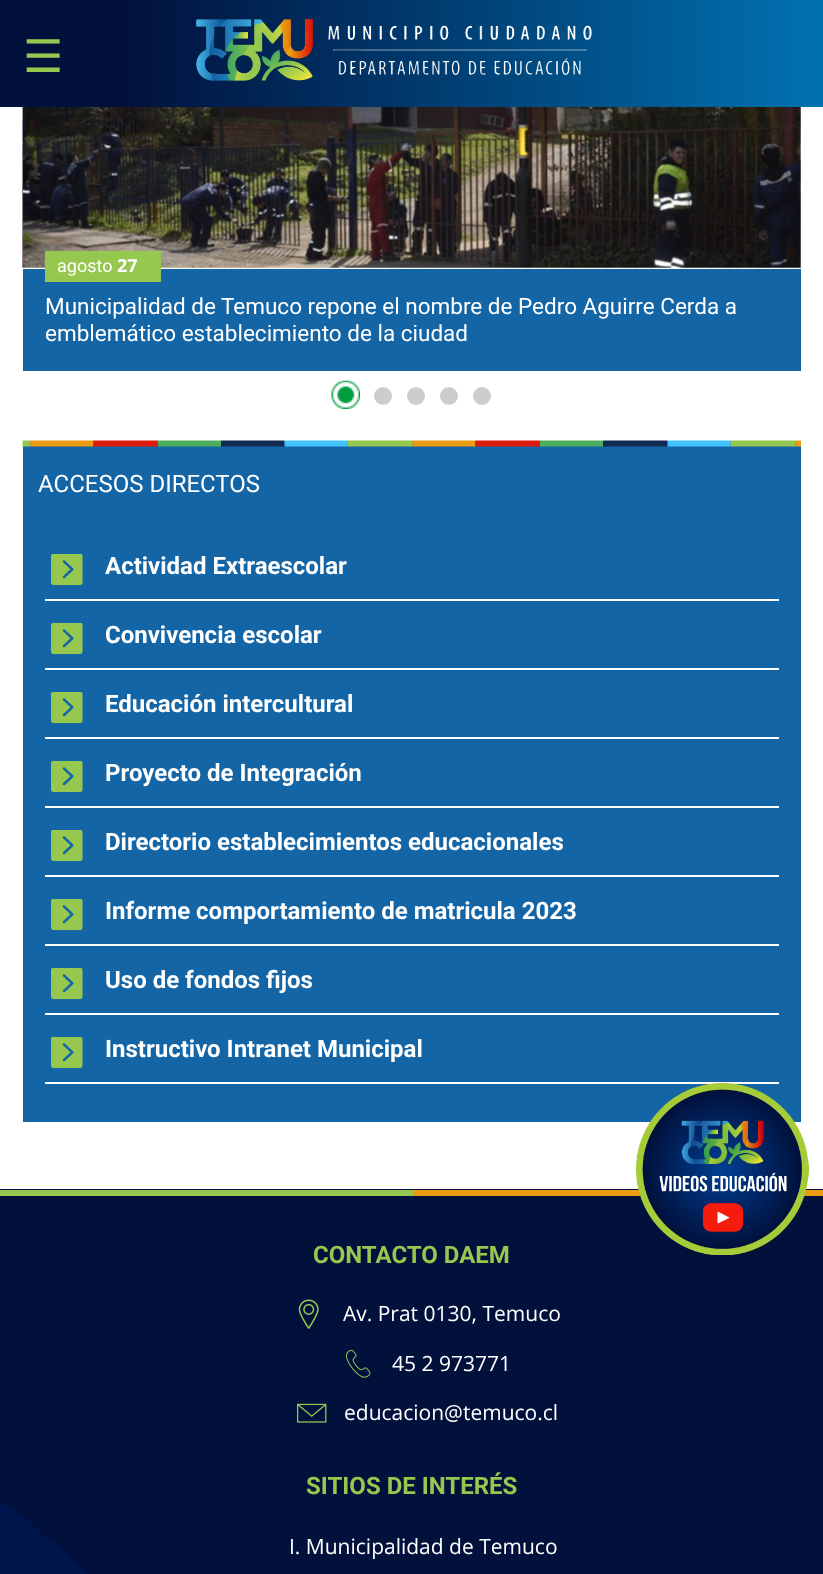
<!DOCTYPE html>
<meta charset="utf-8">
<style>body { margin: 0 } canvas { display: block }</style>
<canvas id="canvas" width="823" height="1574"></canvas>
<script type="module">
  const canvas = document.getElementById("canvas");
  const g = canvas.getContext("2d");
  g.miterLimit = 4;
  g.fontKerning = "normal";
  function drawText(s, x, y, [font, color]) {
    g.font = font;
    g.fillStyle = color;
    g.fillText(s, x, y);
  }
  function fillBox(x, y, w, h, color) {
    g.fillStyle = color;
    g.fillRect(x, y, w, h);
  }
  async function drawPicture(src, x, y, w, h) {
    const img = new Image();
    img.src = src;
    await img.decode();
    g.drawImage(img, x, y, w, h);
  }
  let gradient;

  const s1 = ["45px DejaVu Sans", "#96C74F"];
  const s2 = ["18px Roboto", "#FFFFFF"];
  const s3 = ["bold 18px Open Sans", "#FFFFFF"];
  const s4 = ["22.5px Roboto", "#FFFFFF"];
  const s5 = ["24px Roboto", "#FFFFFF"];
  const s6 = ["bold 24px Roboto", "#FFFFFF"];
  const s7 = ["bold 24px Roboto", "#96C74F"];
  const s8 = ["21px Open Sans", "#FFFFFF"];

  fillBox(0, 0, 823, 1574, "#FFFFFF");
  gradient = g.createLinearGradient(0, 53, 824, 53);
  gradient.addColorStop(0.15, "#01113C");
  gradient.addColorStop(1, "#0072B1");
  g.fillStyle = gradient;
  g.fillRect(0, 0, 823, 107);
  drawText("☰", 23, 72, s1);
  await drawPicture("pic1.png", 196, 19, 396, 62);
  await drawPicture("pic2.png", 22, 107, 1, 161);
  await drawPicture("pic3.png", 23, 107, 778, 161);
  fillBox(23, 269, 778, 102, "#1465A6");
  fillBox(45, 251, 116, 31, "#96C74F");
  drawText("agosto", 57, 272, s2);
  drawText("27", 117, 272, s3);
  drawText("Municipalidad de Temuco repone el nombre de Pedro Aguirre Cerda a", 45, 314, s4);
  drawText("emblemático establecimiento de la ciudad", 45, 341, s4);
  await drawPicture("pic4.png", 331, 380, 29, 29);
  g.fillStyle = "#CDCDCD";
  g.beginPath();
  g.arc(383, 396, 9, 0, Math.PI * 2);
  g.fill();
  g.beginPath();
  g.arc(416, 396, 9, 0, Math.PI * 2);
  g.fill();
  g.beginPath();
  g.arc(449, 396, 9, 0, Math.PI * 2);
  g.fill();
  g.beginPath();
  g.arc(482, 396, 9, 0, Math.PI * 2);
  g.fill();
  fillBox(23, 441, 778, 681, "#1465A6");
  await drawPicture("pic5.png", 22, 440, 779, 7);
  drawText("ACCESOS DIRECTOS", 38, 492, s5);
  fillBox(45, 599, 734, 2, "#FFFFFF");
  await drawPicture("pic6.png", 51, 554, 32, 32);
  drawText("Actividad Extraescolar", 105, 574, s6);
  fillBox(45, 668, 734, 2, "#FFFFFF");
  await drawPicture("pic6.png", 51, 623, 32, 32);
  drawText("Convivencia escolar", 105, 643, s6);
  fillBox(45, 737, 734, 2, "#FFFFFF");
  await drawPicture("pic6.png", 51, 692, 32, 32);
  drawText("Educación intercultural", 105, 712, s6);
  fillBox(45, 806, 734, 2, "#FFFFFF");
  await drawPicture("pic6.png", 51, 761, 32, 32);
  drawText("Proyecto de Integración", 105, 781, s6);
  fillBox(45, 875, 734, 2, "#FFFFFF");
  await drawPicture("pic6.png", 51, 830, 32, 32);
  drawText("Directorio establecimientos educacionales", 105, 850, s6);
  fillBox(45, 944, 734, 2, "#FFFFFF");
  await drawPicture("pic6.png", 51, 899, 32, 32);
  drawText("Informe comportamiento de matricula 2023", 105, 919, s6);
  fillBox(45, 1013, 734, 2, "#FFFFFF");
  await drawPicture("pic6.png", 51, 968, 32, 32);
  drawText("Uso de fondos fijos", 105, 988, s6);
  fillBox(45, 1082, 734, 2, "#FFFFFF");
  await drawPicture("pic6.png", 51, 1037, 32, 32);
  drawText("Instructivo Intranet Municipal", 105, 1057, s6);
  await drawPicture("pic7.png", 0, 1189, 823, 385);
  fillBox(0, 1190, 414, 6, "#96C74F");
  fillBox(414, 1190, 409, 6, "#EB9C11");
  drawText("CONTACTO DAEM", 313, 1263, s7);
  await drawPicture("pic8.png", 298, 1299, 21, 30);
  drawText("Av. Prat 0130, Temuco", 343, 1321, s8);
  await drawPicture("pic9.png", 346, 1349, 25, 29);
  drawText("45 2 973771", 392, 1371, s8);
  await drawPicture("pic10.png", 297, 1403, 30, 20);
  drawText("educacion@temuco.cl", 344, 1420, s8);
  drawText("SITIOS DE INTERÉS", 306, 1494, s7);
  drawText("I. Municipalidad de Temuco", 289, 1554, s8);
  await drawPicture("pic11.png", 636, 1083, 173, 172);
</script>
